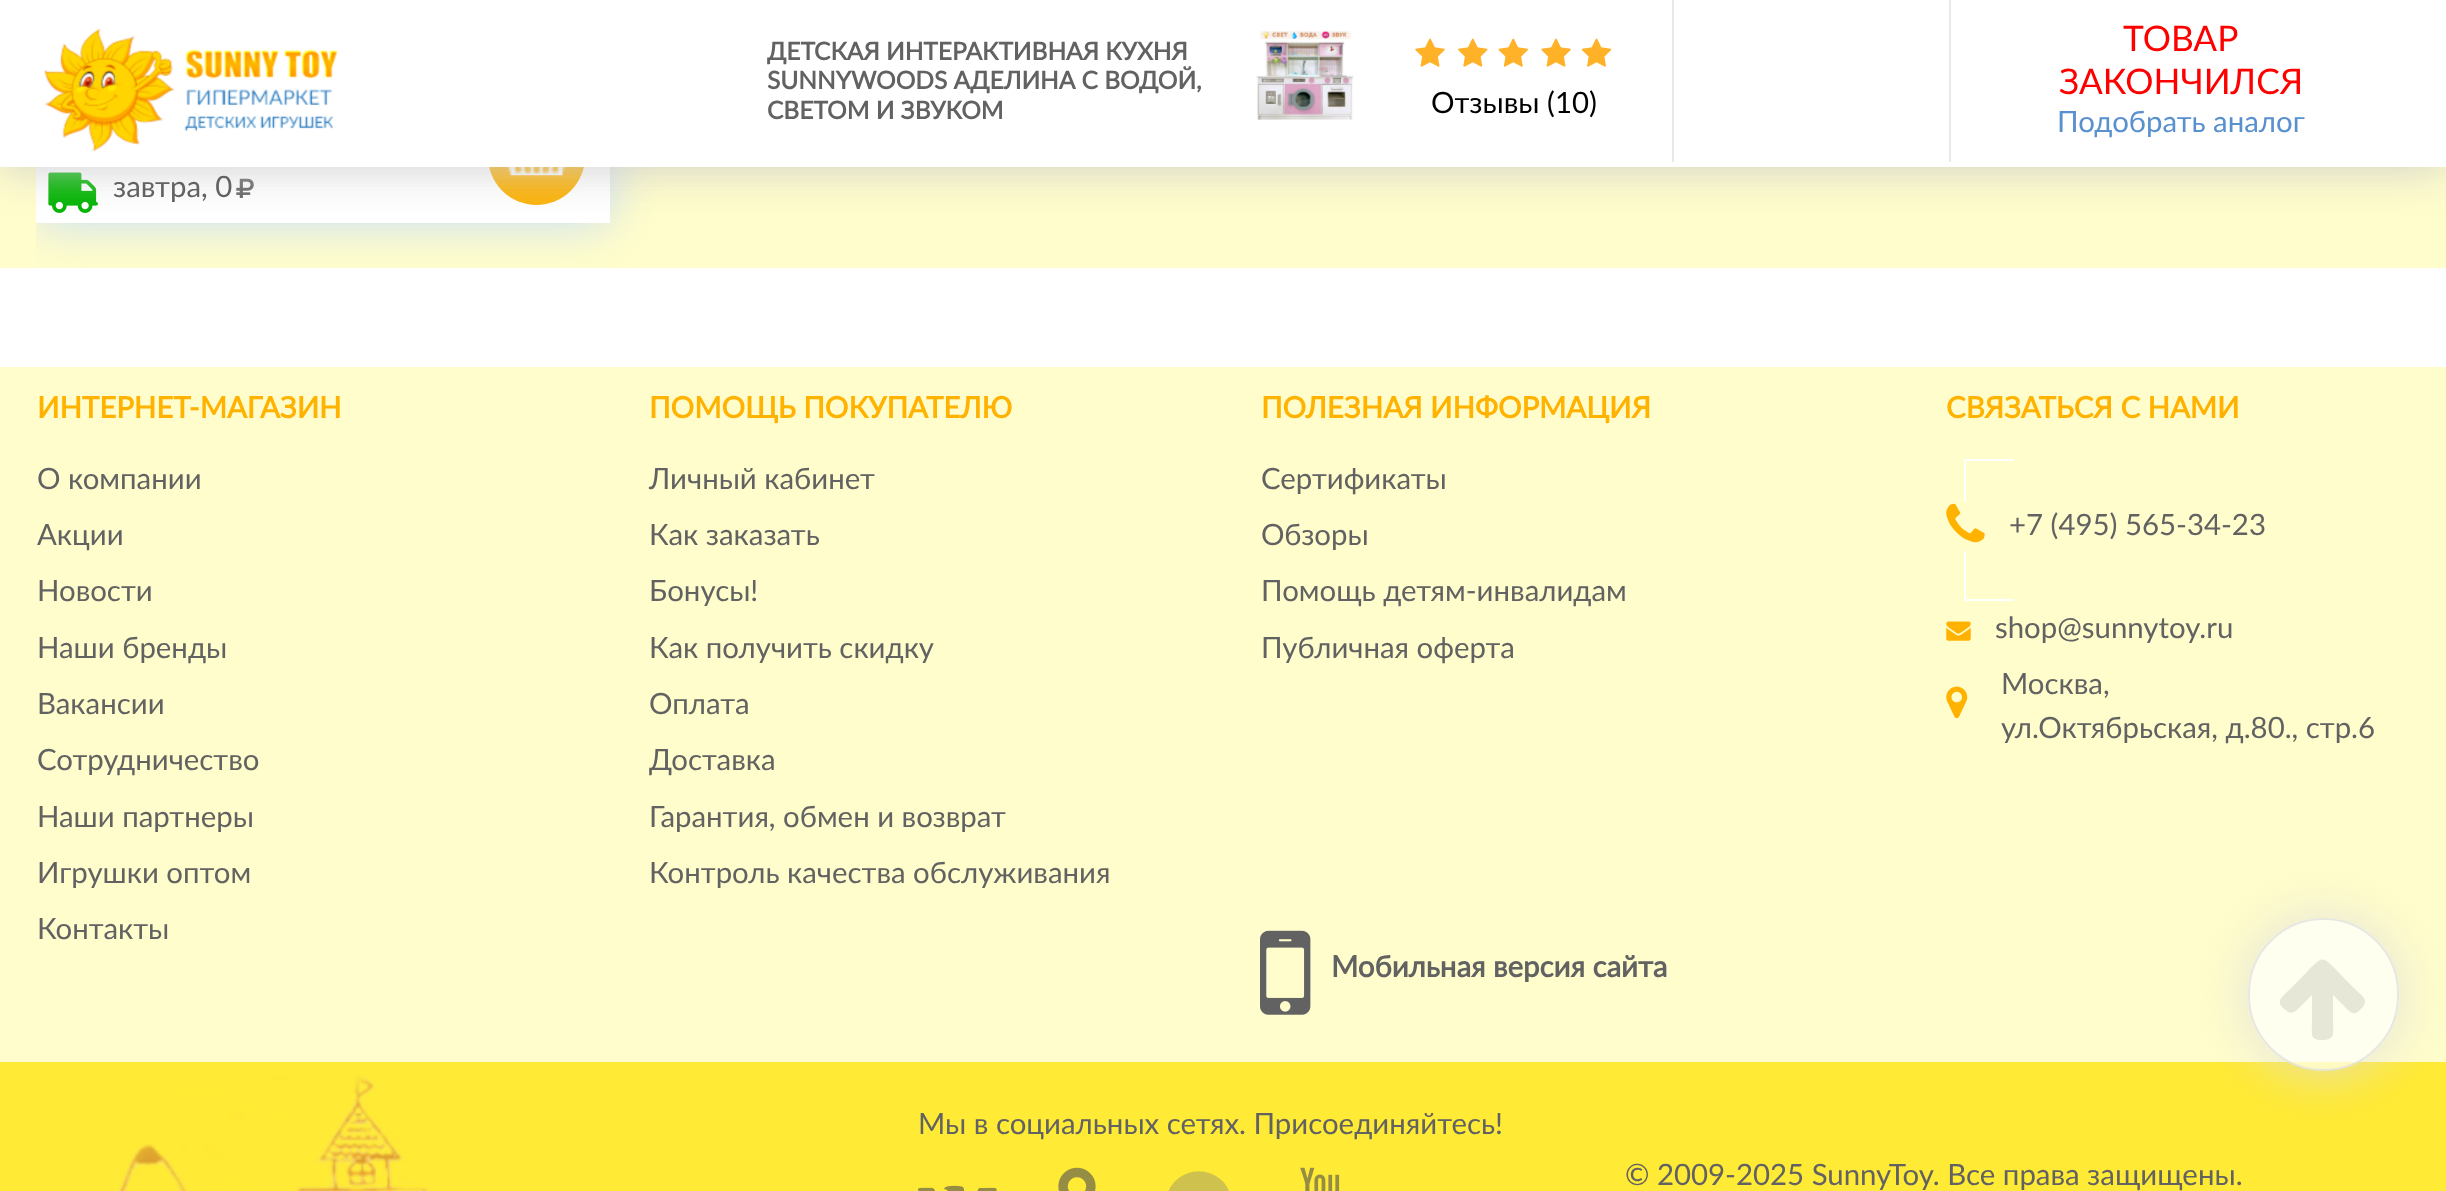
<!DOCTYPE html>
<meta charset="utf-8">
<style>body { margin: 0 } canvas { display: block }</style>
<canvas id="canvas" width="2446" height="1191"></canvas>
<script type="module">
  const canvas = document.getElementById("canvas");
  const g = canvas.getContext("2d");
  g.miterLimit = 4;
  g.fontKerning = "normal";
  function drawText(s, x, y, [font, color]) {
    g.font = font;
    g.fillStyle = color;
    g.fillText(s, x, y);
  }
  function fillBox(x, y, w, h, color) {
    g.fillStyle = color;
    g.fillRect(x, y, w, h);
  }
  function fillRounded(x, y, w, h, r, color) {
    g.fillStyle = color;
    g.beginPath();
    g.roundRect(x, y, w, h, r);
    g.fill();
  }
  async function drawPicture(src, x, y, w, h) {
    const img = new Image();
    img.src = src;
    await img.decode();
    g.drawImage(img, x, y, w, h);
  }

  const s1 = ["bold 24.5px Lato", "#626262"];
  const s2 = ["29.4px Lato", "#000000"];
  const s3 = ["35.25px Lato", "#FF0000"];
  const s4 = ["29.4px Lato", "#5990CE"];
  const s5 = ["29.4px Lato", "#626262"];
  const s6 = ["bold 29.4px Lato", "#FFB200"];
  const s7 = ["bold 29.4px Lato", "#626262"];

  fillBox(0, 0, 2446, 1191, "#FFFFFF");
  fillBox(0, 167, 2446, 101, "#FFFDCB");
  g.save();
  g.beginPath();
  g.rect(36, 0, 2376, 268);
  g.clip();
  g.fillStyle = "#C3DBFC";
  g.filter = "blur(23.5px)";
  g.beginPath();
  g.rect(36, -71, 574, 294);
  g.fill();
  g.filter = "none";
  g.restore();
  fillBox(36, 167, 574, 56, "#FFFFFF");
  await drawPicture("pic7.png", 48, 172, 50, 41);
  await drawPicture("pic8.png", 236, 178, 18, 20);
  fillRounded(488, 106, 97, 99, 48.5, "#FCB207");
  await drawPicture("pic9.png", 508, 167, 58, 9);
  g.fillStyle = "#CCCCCC";
  g.filter = "blur(23.5px)";
  g.beginPath();
  g.rect(0, 0, 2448, 167);
  g.fill();
  g.filter = "none";
  fillBox(0, 0, 2446, 167, "#FFFFFF");
  await drawPicture("pic1.png", 44, 28, 294, 123);
  drawText("ДЕТСКАЯ ИНТЕРАКТИВНАЯ КУХНЯ", 767, 60, s1);
  drawText("SUNNYWOODS АДЕЛИНА С ВОДОЙ,", 767, 89, s1);
  drawText("СВЕТОМ И ЗВУКОМ", 767, 119, s1);
  await drawPicture("pic2.png", 1256, 30, 98, 90);
  await drawPicture("pic3.png", 1415, 38, 30, 29);
  await drawPicture("pic4.png", 1458, 38, 30, 29);
  await drawPicture("pic5.png", 1498, 38, 30, 29);
  await drawPicture("pic3.png", 1541, 38, 30, 29);
  await drawPicture("pic6.png", 1581, 38, 31, 29);
  drawText("Отзывы (10)", 1431, 113, s2);
  fillBox(1949, 0, 2, 162, "#E8E8E8");
  fillBox(1672, 0, 2, 162, "#E8E8E8");
  drawText("ТОВАР", 2123, 51, s3);
  drawText("ЗАКОНЧИЛСЯ", 2059, 94, s3);
  drawText("Подобрать аналог", 2057, 132, s4);
  drawText("завтра, 0", 113, 197, s5);
  fillBox(0, 367, 2446, 695, "#FFFDCB");
  drawText("ИНТЕРНЕТ-МАГАЗИН", 37, 418, s6);
  drawText("О компании", 37, 489, s5);
  drawText("Акции", 37, 545, s5);
  drawText("Новости", 37, 601, s5);
  drawText("Наши бренды", 37, 658, s5);
  drawText("Вакансии", 37, 714, s5);
  drawText("Сотрудничество", 37, 770, s5);
  drawText("Наши партнеры", 37, 827, s5);
  drawText("Игрушки оптом", 37, 883, s5);
  drawText("Контакты", 37, 939, s5);
  drawText("ПОМОЩЬ ПОКУПАТЕЛЮ", 649, 418, s6);
  drawText("Личный кабинет", 649, 489, s5);
  drawText("Как заказать", 649, 545, s5);
  drawText("Бонусы!", 649, 601, s5);
  drawText("Как получить скидку", 649, 658, s5);
  drawText("Оплата", 649, 714, s5);
  drawText("Доставка", 649, 770, s5);
  drawText("Гарантия, обмен и возврат", 649, 827, s5);
  drawText("Контроль качества обслуживания", 649, 883, s5);
  drawText("ПОЛЕЗНАЯ ИНФОРМАЦИЯ", 1261, 418, s6);
  drawText("Сертификаты", 1261, 489, s5);
  drawText("Обзоры", 1261, 545, s5);
  drawText("Помощь детям-инвалидам", 1261, 601, s5);
  drawText("Публичная оферта", 1261, 658, s5);
  await drawPicture("pic10.png", 1260, 930, 51, 85);
  drawText("Мобильная версия сайта", 1331, 977, s7);
  drawText("СВЯЗАТЬСЯ С НАМИ", 1946, 418, s6);
  fillBox(1964, 459, 50, 2, "#FFFFFF");
  fillBox(1964, 599, 50, 2, "#FFFFFF");
  fillBox(1964, 459, 2, 142, "#FFFFFF");
  fillBox(1964, 502, 2, 49, "#FFFDCB");
  await drawPicture("pic11.png", 1946, 503, 39, 40);
  drawText("+7 (495) 565-34-23", 2009, 535, s5);
  await drawPicture("pic12.png", 1946, 621, 25, 20);
  drawText("shop@sunnytoy.ru", 1995, 638, s5);
  await drawPicture("pic13.png", 1946, 686, 22, 33);
  drawText("Москва,", 2001, 694, s5);
  drawText("ул.Октябрьская, д.80., стр.6", 2001, 738, s5);
  fillBox(0, 1062, 2446, 129, "#FFEA35");
  await drawPicture("pic14.png", 117, 1075, 313, 116);
  drawText("Мы в социальных сетях. Присоединяйтесь!", 918, 1134, s5);
  await drawPicture("pic15.png", 918, 1185, 79, 6);
  await drawPicture("pic16.png", 1058, 1167, 38, 24);
  await drawPicture("pic17.png", 1168, 1171, 61, 20);
  await drawPicture("pic18.png", 1300, 1167, 40, 24);
  drawText("© 2009-2025 SunnyToy. Все права защищены.", 1625, 1185, s5);
  g.save();
  g.beginPath();
  g.moveTo(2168, 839);
  g.lineTo(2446, 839);
  g.lineTo(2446, 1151);
  g.lineTo(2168, 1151);
  g.closePath();
  g.moveTo(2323.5, 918);
  g.bezierCurveTo(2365, 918, 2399, 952, 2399, 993.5);
  g.lineTo(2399, 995.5);
  g.bezierCurveTo(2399, 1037, 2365, 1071, 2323.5, 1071);
  g.bezierCurveTo(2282, 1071, 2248, 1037, 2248, 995.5);
  g.lineTo(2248, 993.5);
  g.bezierCurveTo(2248, 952, 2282, 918, 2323.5, 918);
  g.closePath();
  g.clip("evenodd");
  g.fillStyle = "rgba(221, 221, 221, 0.7)";
  g.filter = "blur(24.5px)";
  g.beginPath();
  g.roundRect(2243, 914, 160, 162, 80);
  g.fill();
  g.filter = "none";
  g.restore();
  fillRounded(2248, 918, 151, 153, 75.5, "rgba(255, 255, 255, 0.7)");
  g.beginPath();
  g.roundRect(2249, 919, 149, 151, 74.5);
  g.strokeStyle = "rgba(221, 221, 221, 0.7)";
  g.lineWidth = 2;
  g.stroke();
  g.fillStyle = "#E7E7D8";
  g.beginPath();
  g.moveTo(2365, 1002);
  g.bezierCurveTo(2365, 1005, 2362, 1008, 2360, 1010);
  g.bezierCurveTo(2353, 1017, 2349, 1011, 2344, 1006);
  g.lineTo(2333, 995);
  g.lineTo(2333, 1021);
  g.bezierCurveTo(2333, 1033, 2336, 1040, 2322, 1040);
  g.bezierCurveTo(2309, 1040, 2312, 1033, 2312, 1021);
  g.lineTo(2312, 995);
  g.lineTo(2301, 1006);
  g.bezierCurveTo(2298, 1009, 2293, 1015, 2288, 1012);
  g.lineTo(2283, 1008);
  g.bezierCurveTo(2276, 1001, 2282, 997, 2288, 991);
  g.lineTo(2300, 979);
  g.bezierCurveTo(2326, 953, 2319, 953, 2345, 979);
  g.lineTo(2357, 991);
  g.bezierCurveTo(2360, 994, 2365, 997, 2365, 1002);
  g.closePath();
  g.fill();
</script>
